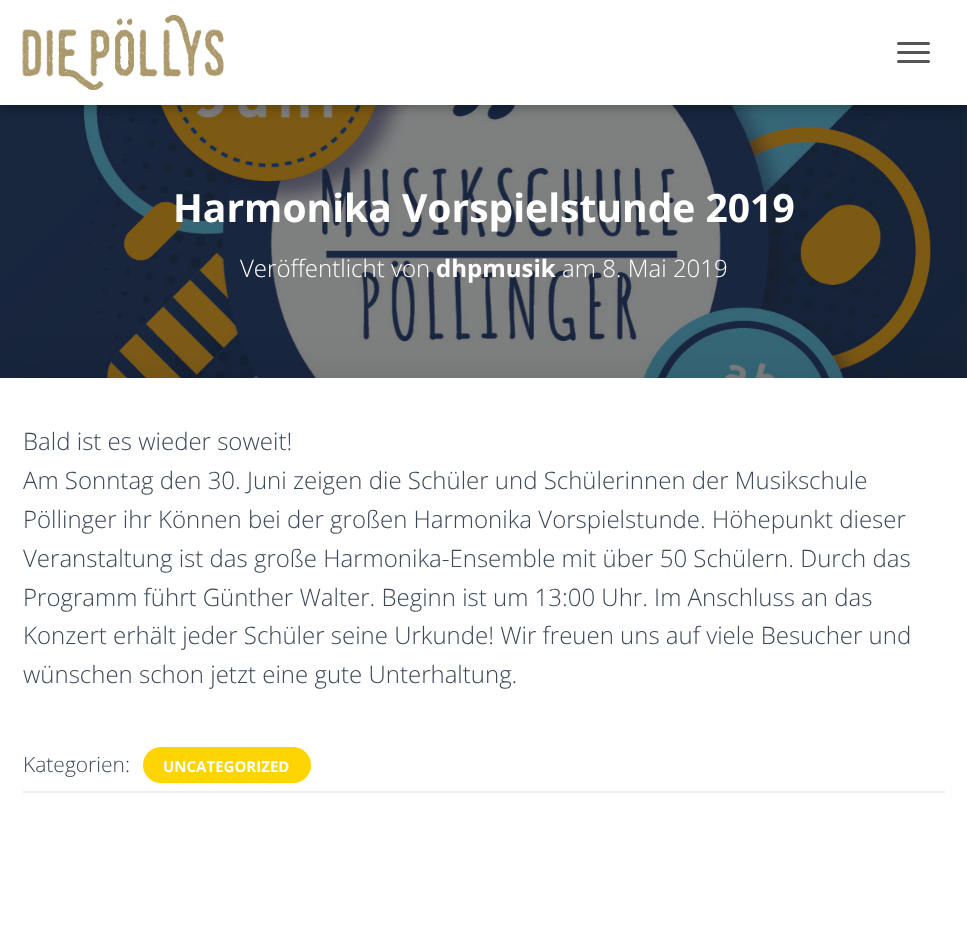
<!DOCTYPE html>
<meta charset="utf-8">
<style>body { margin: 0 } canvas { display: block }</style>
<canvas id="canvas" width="967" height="925"></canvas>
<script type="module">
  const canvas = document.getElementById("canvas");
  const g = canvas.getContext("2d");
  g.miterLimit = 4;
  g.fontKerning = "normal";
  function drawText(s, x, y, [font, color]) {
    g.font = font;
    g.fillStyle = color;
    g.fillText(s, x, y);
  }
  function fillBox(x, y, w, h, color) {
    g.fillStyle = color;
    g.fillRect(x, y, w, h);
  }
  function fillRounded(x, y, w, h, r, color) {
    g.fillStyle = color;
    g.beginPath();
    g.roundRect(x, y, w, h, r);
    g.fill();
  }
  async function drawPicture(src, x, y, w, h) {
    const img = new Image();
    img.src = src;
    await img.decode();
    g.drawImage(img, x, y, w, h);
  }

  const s1 = ["bold 39px Open Sans", "#FFFFFF"];
  const s2 = ["300 24px Open Sans", "#FFFFFF"];
  const s3 = ["bold 24px Open Sans", "#FFFFFF"];
  const s4 = ["300 24px Open Sans", "#3C4858"];
  const s5 = ["300 21px Open Sans", "#3C4858"];
  const s6 = ["bold 15px Open Sans", "#FFFFFF"];

  fillBox(0, 0, 967, 925, "#FFFFFF");
  await drawPicture("pic2.png", 0, 105, 967, 273);
  fillBox(0, 105, 967, 273, "rgba(0, 0, 0, 0.5)");
  g.fillStyle = "rgba(0, 0, 0, 0.1)";
  g.filter = "blur(4px)";
  g.beginPath();
  g.rect(3, 9, 962, 99);
  g.fill();
  g.filter = "none";
  g.fillStyle = "rgba(0, 0, 0, 0.12)";
  g.filter = "blur(7.5px)";
  g.beginPath();
  g.rect(0, 2, 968, 105);
  g.fill();
  g.filter = "none";
  g.fillStyle = "rgba(0, 0, 0, 0.42)";
  g.filter = "blur(7.5px)";
  g.beginPath();
  g.rect(9, 11, 950, 87);
  g.fill();
  g.filter = "none";
  fillBox(0, 0, 967, 105, "#FFFFFF");
  await drawPicture("pic1.png", 22, 15, 202, 75);
  fillRounded(897, 42, 33, 3, 1.5, "#555555");
  fillRounded(897, 51, 33, 3, 1.5, "#555555");
  fillRounded(897, 60, 33, 3, 1.5, "#555555");
  drawText("Harmonika Vorspielstunde 2019", 173, 222, s1);
  drawText("Veröffentlicht von", 240, 277, s2);
  drawText("dhpmusik", 436, 277, s3);
  drawText("am 8. Mai 2019", 562, 277, s2);
  g.fillStyle = "rgba(0, 0, 0, 0.12)";
  g.filter = "blur(22.5px)";
  g.beginPath();
  g.rect(-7, 380, 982, 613);
  g.fill();
  g.filter = "none";
  fillBox(0, 378, 967, 547, "#FFFFFF");
  drawText("Bald ist es wieder soweit!", 23, 450, s4);
  drawText("Am Sonntag den 30. Juni zeigen die Schüler und Schülerinnen der Musikschule", 23, 489, s4);
  drawText("Pöllinger ihr Können bei der großen Harmonika Vorspielstunde. Höhepunkt dieser", 23, 528, s4);
  drawText("Veranstaltung ist das große Harmonika-Ensemble mit über 50 Schülern. Durch das", 23, 567, s4);
  drawText("Programm führt Günther Walter. Beginn ist um 13:00 Uhr. Im Anschluss an das", 23, 606, s4);
  drawText("Konzert erhält jeder Schüler seine Urkunde! Wir freuen uns auf viele Besucher und", 23, 644, s4);
  drawText("wünschen schon jetzt eine gute Unterhaltung.", 23, 683, s4);
  drawText("Kategorien:", 23, 772, s5);
  fillRounded(143, 747, 168, 36, 18, "#FFD400");
  drawText("UNCATEGORIZED", 163, 772, s6);
  fillBox(23, 791, 922, 2, "#EEEEEE");
</script>
